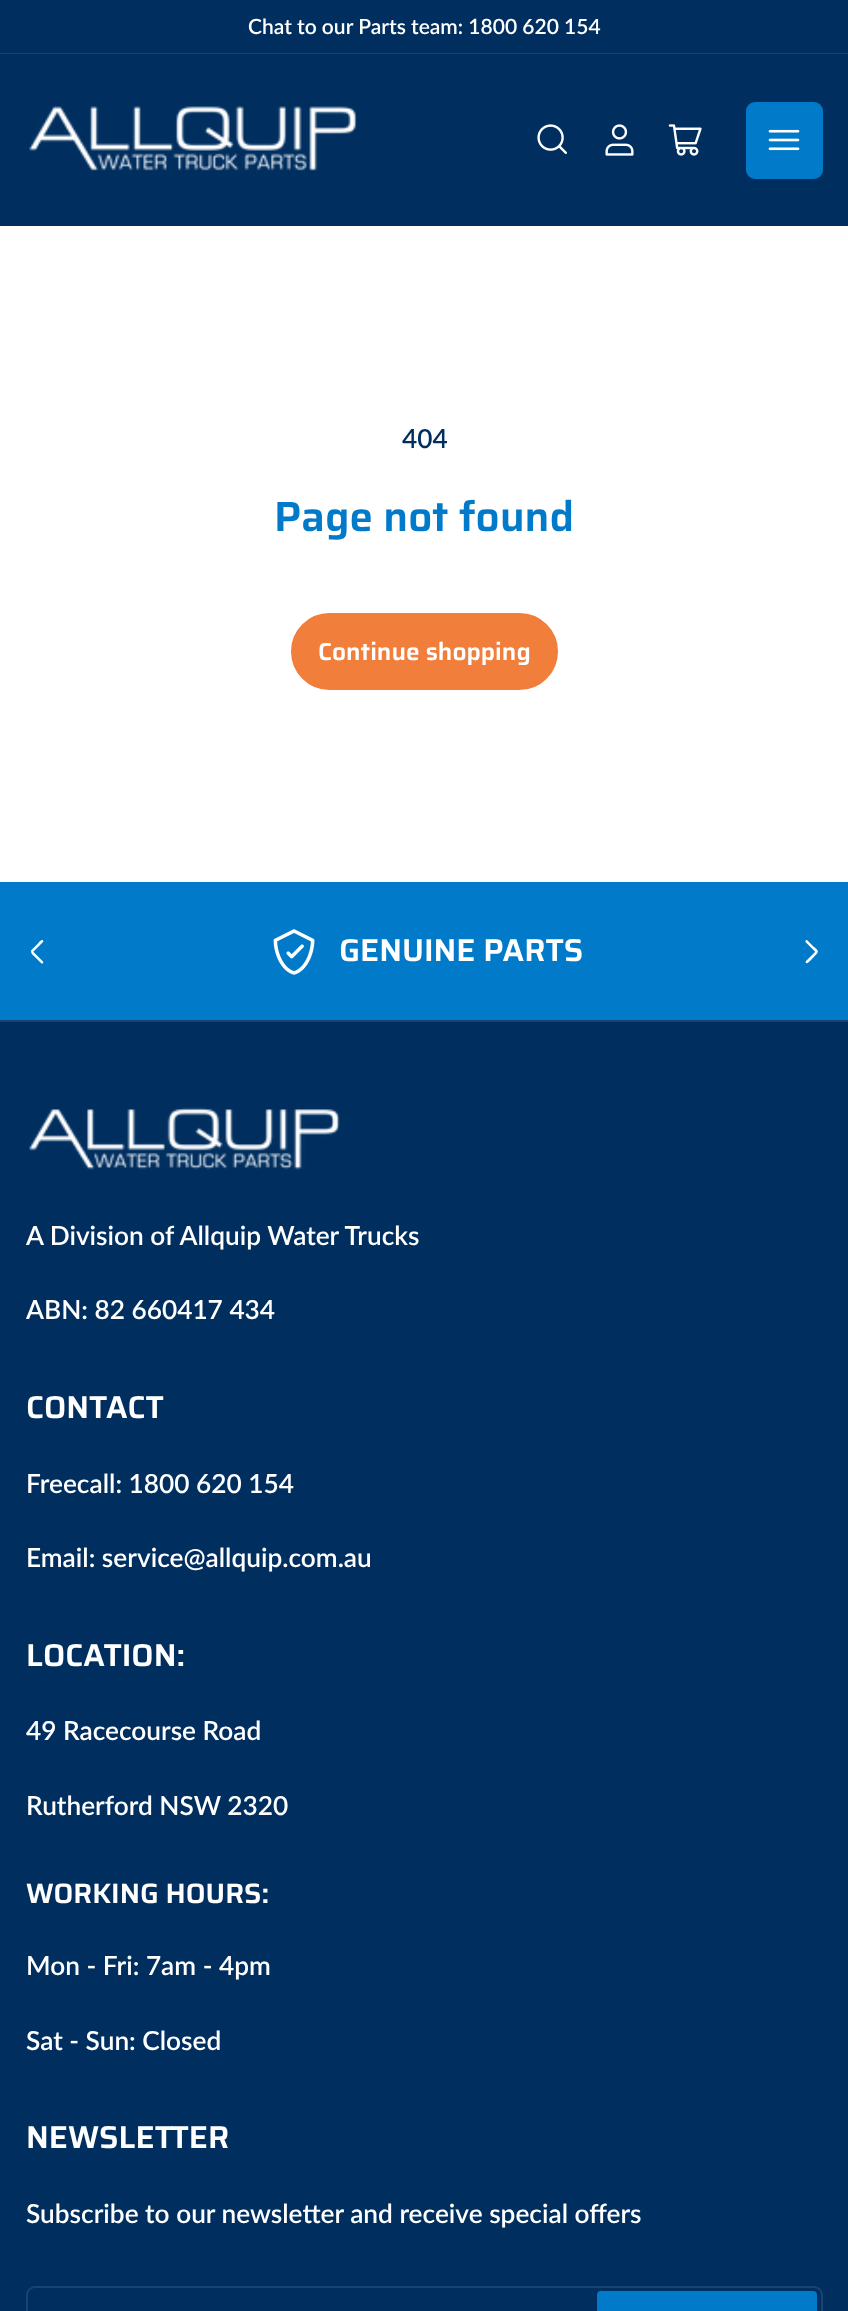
<!DOCTYPE html>
<meta charset="utf-8">
<style>body { margin: 0 } canvas { display: block }</style>
<canvas id="canvas" width="848" height="2311"></canvas>
<script type="module">
  const canvas = document.getElementById("canvas");
  const g = canvas.getContext("2d");
  g.miterLimit = 4;
  g.fontKerning = "normal";
  function drawText(s, x, y, [font, color]) {
    g.font = font;
    g.fillStyle = color;
    g.fillText(s, x, y);
  }
  function fillBox(x, y, w, h, color) {
    g.fillStyle = color;
    g.fillRect(x, y, w, h);
  }
  async function drawPicture(src, x, y, w, h) {
    const img = new Image();
    img.src = src;
    await img.decode();
    g.drawImage(img, x, y, w, h);
  }

  const s1 = ["600 21px Lato", "#FFFFFF"];
  const s2 = ["600 26.25px Lato", "#002F5F"];
  const s3 = ["600 42px Saira", "#007AC9"];
  const s4 = ["600 24.5px Saira", "#FFFFFF"];
  const s5 = ["600 31.5px Saira", "#FFFFFF"];
  const s6 = ["600 26.25px Lato", "#FFFFFF"];
  const s7 = ["600 28px Saira", "#FFFFFF"];

  fillBox(0, 0, 848, 2311, "#FFFFFF");
  fillBox(0, 0, 848, 53, "#002F5F");
  fillBox(0, 53, 848, 1, "#1A446F");
  drawText("Chat to our Parts team: 1800 620 154", 248, 34, s1);
  fillBox(0, 54, 848, 172, "#002F5F");
  await drawPicture("pic1.png", 29, 106, 328, 65);
  await drawPicture("pic2.png", 537, 124, 30, 30);
  await drawPicture("pic3.png", 605, 124, 29, 32);
  await drawPicture("pic4.png", 668, 124, 34, 32);
  g.fillStyle = "#007AC9";
  g.beginPath();
  g.roundRect(747, 103, 75, 75, 8);
  g.fill();
  g.strokeStyle = "#007AC9";
  g.lineWidth = 2;
  g.stroke();
  await drawPicture("pic5.png", 768, 129, 32, 22);
  drawText("404", 402, 448, s2);
  drawText("Page not found", 274, 531, s3);
  g.fillStyle = "#F17E3A";
  g.beginPath();
  g.roundRect(292, 614, 265, 75, 37.5);
  g.fill();
  g.strokeStyle = "#F17E3A";
  g.stroke();
  drawText("Continue shopping", 318, 660, s4);
  fillBox(0, 882, 848, 138, "#007AC9");
  g.fillStyle = "#FFFFFF";
  g.beginPath();
  g.moveTo(43, 942);
  g.lineTo(33, 952);
  g.bezierCurveTo(32, 952.5, 30.5, 951.5, 31, 950.5);
  g.lineTo(38, 943.5);
  g.bezierCurveTo(38.5, 943, 41.5, 938.5, 43, 940.5);
  g.bezierCurveTo(43.5, 941, 43.5, 941.5, 43, 942);
  g.closePath();
  g.fill();
  g.beginPath();
  g.moveTo(33, 951.5);
  g.lineTo(43, 961.5);
  g.bezierCurveTo(44, 962.5, 42.5, 964, 41.5, 963.5);
  g.lineTo(34.5, 956.5);
  g.bezierCurveTo(34, 956, 30, 953, 31.5, 951.5);
  g.bezierCurveTo(32, 951, 32.5, 951, 33, 951.5);
  g.closePath();
  g.fill();
  g.beginPath();
  g.moveTo(806, 961);
  g.lineTo(815.5, 951.5);
  g.bezierCurveTo(817, 950.5, 818, 951.5, 817.5, 953);
  g.lineTo(811, 960);
  g.bezierCurveTo(810, 960.5, 807.5, 964.5, 806, 963);
  g.bezierCurveTo(805.5, 962.5, 805.5, 961.5, 806, 961);
  g.closePath();
  g.fill();
  g.beginPath();
  g.moveTo(815.5, 952);
  g.lineTo(805.5, 942);
  g.bezierCurveTo(805, 941, 806, 939.5, 807, 940);
  g.lineTo(814, 947);
  g.bezierCurveTo(815, 947.5, 819, 950.5, 817.5, 952);
  g.bezierCurveTo(817, 952.5, 816, 952.5, 815.5, 952);
  g.closePath();
  g.fill();
  await drawPicture("pic6.png", 273, 929, 42, 46);
  drawText("GENUINE PARTS", 339, 961, s5);
  fillBox(0, 1022, 848, 1289, "#002F5F");
  fillBox(0, 1020, 848, 2, "#1A446F");
  await drawPicture("pic7.png", 29, 1107, 311, 63);
  drawText("A Division of Allquip Water Trucks", 26, 1245, s6);
  drawText("ABN: 82 660417 434", 26, 1319, s6);
  drawText("CONTACT", 26, 1418, s5);
  drawText("Freecall: 1800 620 154", 26, 1493, s6);
  drawText("Email: service@allquip.com.au", 26, 1567, s6);
  drawText("LOCATION:", 26, 1666, s5);
  drawText("49 Racecourse Road", 26, 1740, s6);
  drawText("Rutherford NSW 2320", 26, 1815, s6);
  drawText("WORKING HOURS:", 26, 1903, s7);
  drawText("Mon - Fri: 7am - 4pm", 26, 1975, s6);
  drawText("Sat - Sun: Closed", 26, 2050, s6);
  drawText("NEWSLETTER", 26, 2148, s5);
  drawText("Subscribe to our newsletter and receive special offers", 26, 2223, s6);
  g.beginPath();
  g.roundRect(27, 2287, 795, 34, 8);
  g.strokeStyle = "#1A446F";
  g.stroke();
  g.fillStyle = "#007AC9";
  g.beginPath();
  g.roundRect(598, 2292, 218, 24, 3);
  g.fill();
  g.strokeStyle = "#007AC9";
  g.stroke();
</script>
